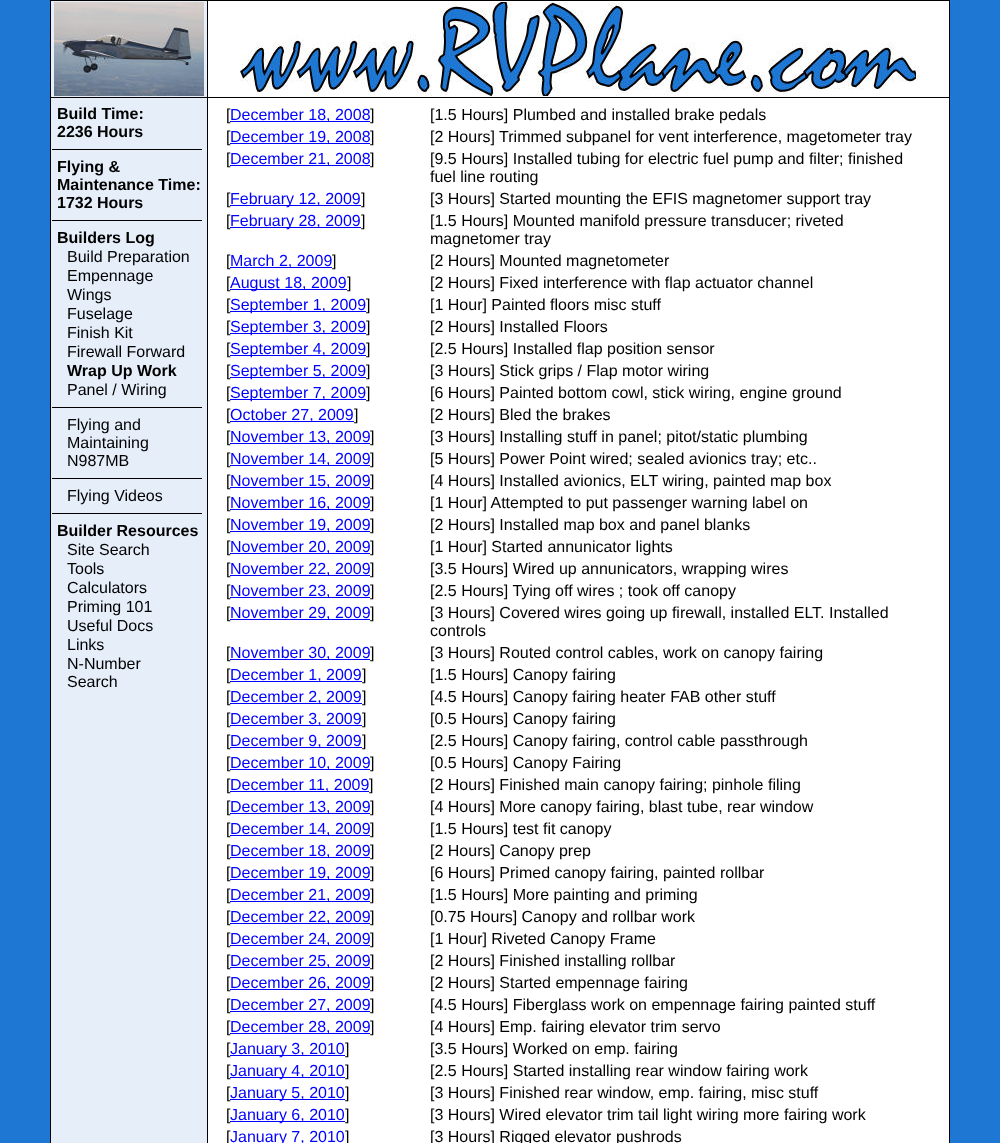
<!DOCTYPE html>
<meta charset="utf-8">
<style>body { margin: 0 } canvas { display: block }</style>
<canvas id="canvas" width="1000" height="1143"></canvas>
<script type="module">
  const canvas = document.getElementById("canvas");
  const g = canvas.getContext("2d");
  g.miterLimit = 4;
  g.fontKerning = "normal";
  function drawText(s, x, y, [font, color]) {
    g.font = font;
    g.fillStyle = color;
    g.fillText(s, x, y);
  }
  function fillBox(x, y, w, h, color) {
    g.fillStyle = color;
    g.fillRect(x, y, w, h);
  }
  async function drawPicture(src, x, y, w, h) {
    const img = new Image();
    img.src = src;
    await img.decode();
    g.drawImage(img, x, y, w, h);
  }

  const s1 = ["bold 16px Liberation Sans", "#000000"];
  const s2 = ["16px Liberation Sans", "#000000"];
  const s3 = ["16px Liberation Sans", "#0000FF"];

  fillBox(0, 0, 1000, 1143, "#1E77D3");
  fillBox(208, 1, 741, 1142, "#FFFFFF");
  fillBox(50, 0, 900, 1, "#000000");
  fillBox(949, 0, 1, 1143, "#000000");
  fillBox(50, 0, 1, 1143, "#000000");
  fillBox(51, 1, 156, 96, "#E5EEF9");
  fillBox(207, 97, 1, 1046, "#000000");
  fillBox(207, 97, 743, 1, "#000000");
  fillBox(207, 0, 1, 98, "#000000");
  fillBox(50, 97, 158, 1, "#000000");
  await drawPicture("pic1.png", 54, 2, 150, 94);
  await drawPicture("pic2.png", 240, 2, 680, 94);
  fillBox(51, 98, 156, 1045, "#E5EEF9");
  drawText("Build Time:", 57, 119, s1);
  drawText("2236 Hours", 57, 137, s1);
  fillBox(52, 149, 150, 1, "#000000");
  drawText("Flying &", 57, 172, s1);
  drawText("Maintenance Time:", 57, 190, s1);
  drawText("1732 Hours", 57, 208, s1);
  fillBox(52, 220, 150, 1, "#000000");
  drawText("Builders Log", 57, 243, s1);
  drawText("Build Preparation", 67, 262, s2);
  drawText("Empennage", 67, 281, s2);
  drawText("Wings", 67, 300, s2);
  drawText("Fuselage", 67, 319, s2);
  drawText("Finish Kit", 67, 338, s2);
  drawText("Firewall Forward", 67, 357, s2);
  drawText("Wrap Up Work", 67, 376, s1);
  drawText("Panel / Wiring", 67, 395, s2);
  fillBox(52, 407, 150, 1, "#000000");
  drawText("Flying and", 67, 430, s2);
  drawText("Maintaining", 67, 448, s2);
  drawText("N987MB", 67, 466, s2);
  fillBox(52, 478, 150, 1, "#000000");
  drawText("Flying Videos", 67, 501, s2);
  fillBox(52, 513, 150, 1, "#000000");
  drawText("Builder Resources", 57, 536, s1);
  drawText("Site Search", 67, 555, s2);
  drawText("Tools", 67, 574, s2);
  drawText("Calculators", 67, 593, s2);
  drawText("Priming 101", 67, 612, s2);
  drawText("Useful Docs", 67, 631, s2);
  drawText("Links", 67, 650, s2);
  drawText("N-Number", 67, 669, s2);
  drawText("Search", 67, 687, s2);
  drawText("[", 226, 120, s2);
  fillBox(230, 121, 140, 1, "#0000FF");
  drawText("December 18, 2008", 230, 120, s3);
  drawText("]", 370, 120, s2);
  drawText("[1.5 Hours] Plumbed and installed brake pedals", 430, 120, s2);
  drawText("[", 226, 142, s2);
  fillBox(230, 143, 140, 1, "#0000FF");
  drawText("December 19, 2008", 230, 142, s3);
  drawText("]", 370, 142, s2);
  drawText("[2 Hours] Trimmed subpanel for vent interference, magetometer tray", 430, 142, s2);
  drawText("[", 226, 164, s2);
  fillBox(230, 165, 140, 1, "#0000FF");
  drawText("December 21, 2008", 230, 164, s3);
  drawText("]", 370, 164, s2);
  drawText("[9.5 Hours] Installed tubing for electric fuel pump and filter; finished", 430, 164, s2);
  drawText("fuel line routing", 430, 182, s2);
  drawText("[", 226, 204, s2);
  fillBox(230, 205, 131, 1, "#0000FF");
  drawText("February 12, 2009", 230, 204, s3);
  drawText("]", 361, 204, s2);
  drawText("[3 Hours] Started mounting the EFIS magnetomer support tray", 430, 204, s2);
  drawText("[", 226, 226, s2);
  fillBox(230, 227, 131, 1, "#0000FF");
  drawText("February 28, 2009", 230, 226, s3);
  drawText("]", 361, 226, s2);
  drawText("[1.5 Hours] Mounted manifold pressure transducer; riveted", 430, 226, s2);
  drawText("magnetomer tray", 430, 244, s2);
  drawText("[", 226, 266, s2);
  fillBox(230, 267, 102, 1, "#0000FF");
  drawText("March 2, 2009", 230, 266, s3);
  drawText("]", 332, 266, s2);
  drawText("[2 Hours] Mounted magnetometer", 430, 266, s2);
  drawText("[", 226, 288, s2);
  fillBox(230, 289, 117, 1, "#0000FF");
  drawText("August 18, 2009", 230, 288, s3);
  drawText("]", 347, 288, s2);
  drawText("[2 Hours] Fixed interference with flap actuator channel", 430, 288, s2);
  drawText("[", 226, 310, s2);
  fillBox(230, 311, 136, 1, "#0000FF");
  drawText("September 1, 2009", 230, 310, s3);
  drawText("]", 366, 310, s2);
  drawText("[1 Hour] Painted floors misc stuff", 430, 310, s2);
  drawText("[", 226, 332, s2);
  fillBox(230, 333, 136, 1, "#0000FF");
  drawText("September 3, 2009", 230, 332, s3);
  drawText("]", 366, 332, s2);
  drawText("[2 Hours] Installed Floors", 430, 332, s2);
  drawText("[", 226, 354, s2);
  fillBox(230, 355, 136, 1, "#0000FF");
  drawText("September 4, 2009", 230, 354, s3);
  drawText("]", 366, 354, s2);
  drawText("[2.5 Hours] Installed flap position sensor", 430, 354, s2);
  drawText("[", 226, 376, s2);
  fillBox(230, 377, 136, 1, "#0000FF");
  drawText("September 5, 2009", 230, 376, s3);
  drawText("]", 366, 376, s2);
  drawText("[3 Hours] Stick grips / Flap motor wiring", 430, 376, s2);
  drawText("[", 226, 398, s2);
  fillBox(230, 399, 136, 1, "#0000FF");
  drawText("September 7, 2009", 230, 398, s3);
  drawText("]", 366, 398, s2);
  drawText("[6 Hours] Painted bottom cowl, stick wiring, engine ground", 430, 398, s2);
  drawText("[", 226, 420, s2);
  fillBox(230, 421, 124, 1, "#0000FF");
  drawText("October 27, 2009", 230, 420, s3);
  drawText("]", 354, 420, s2);
  drawText("[2 Hours] Bled the brakes", 430, 420, s2);
  drawText("[", 226, 442, s2);
  fillBox(230, 443, 140, 1, "#0000FF");
  drawText("November 13, 2009", 230, 442, s3);
  drawText("]", 370, 442, s2);
  drawText("[3 Hours] Installing stuff in panel; pitot/static plumbing", 430, 442, s2);
  drawText("[", 226, 464, s2);
  fillBox(230, 465, 140, 1, "#0000FF");
  drawText("November 14, 2009", 230, 464, s3);
  drawText("]", 370, 464, s2);
  drawText("[5 Hours] Power Point wired; sealed avionics tray; etc..", 430, 464, s2);
  drawText("[", 226, 486, s2);
  fillBox(230, 487, 140, 1, "#0000FF");
  drawText("November 15, 2009", 230, 486, s3);
  drawText("]", 370, 486, s2);
  drawText("[4 Hours] Installed avionics, ELT wiring, painted map box", 430, 486, s2);
  drawText("[", 226, 508, s2);
  fillBox(230, 509, 140, 1, "#0000FF");
  drawText("November 16, 2009", 230, 508, s3);
  drawText("]", 370, 508, s2);
  drawText("[1 Hour] Attempted to put passenger warning label on", 430, 508, s2);
  drawText("[", 226, 530, s2);
  fillBox(230, 531, 140, 1, "#0000FF");
  drawText("November 19, 2009", 230, 530, s3);
  drawText("]", 370, 530, s2);
  drawText("[2 Hours] Installed map box and panel blanks", 430, 530, s2);
  drawText("[", 226, 552, s2);
  fillBox(230, 553, 140, 1, "#0000FF");
  drawText("November 20, 2009", 230, 552, s3);
  drawText("]", 370, 552, s2);
  drawText("[1 Hour] Started annunicator lights", 430, 552, s2);
  drawText("[", 226, 574, s2);
  fillBox(230, 575, 140, 1, "#0000FF");
  drawText("November 22, 2009", 230, 574, s3);
  drawText("]", 370, 574, s2);
  drawText("[3.5 Hours] Wired up annunicators, wrapping wires", 430, 574, s2);
  drawText("[", 226, 596, s2);
  fillBox(230, 597, 140, 1, "#0000FF");
  drawText("November 23, 2009", 230, 596, s3);
  drawText("]", 370, 596, s2);
  drawText("[2.5 Hours] Tying off wires ; took off canopy", 430, 596, s2);
  drawText("[", 226, 618, s2);
  fillBox(230, 619, 140, 1, "#0000FF");
  drawText("November 29, 2009", 230, 618, s3);
  drawText("]", 370, 618, s2);
  drawText("[3 Hours] Covered wires going up firewall, installed ELT. Installed", 430, 618, s2);
  drawText("controls", 430, 636, s2);
  drawText("[", 226, 658, s2);
  fillBox(230, 659, 140, 1, "#0000FF");
  drawText("November 30, 2009", 230, 658, s3);
  drawText("]", 370, 658, s2);
  drawText("[3 Hours] Routed control cables, work on canopy fairing", 430, 658, s2);
  drawText("[", 226, 680, s2);
  fillBox(230, 681, 132, 1, "#0000FF");
  drawText("December 1, 2009", 230, 680, s3);
  drawText("]", 362, 680, s2);
  drawText("[1.5 Hours] Canopy fairing", 430, 680, s2);
  drawText("[", 226, 702, s2);
  fillBox(230, 703, 132, 1, "#0000FF");
  drawText("December 2, 2009", 230, 702, s3);
  drawText("]", 362, 702, s2);
  drawText("[4.5 Hours] Canopy fairing heater FAB other stuff", 430, 702, s2);
  drawText("[", 226, 724, s2);
  fillBox(230, 725, 132, 1, "#0000FF");
  drawText("December 3, 2009", 230, 724, s3);
  drawText("]", 362, 724, s2);
  drawText("[0.5 Hours] Canopy fairing", 430, 724, s2);
  drawText("[", 226, 746, s2);
  fillBox(230, 747, 132, 1, "#0000FF");
  drawText("December 9, 2009", 230, 746, s3);
  drawText("]", 362, 746, s2);
  drawText("[2.5 Hours] Canopy fairing, control cable passthrough", 430, 746, s2);
  drawText("[", 226, 768, s2);
  fillBox(230, 769, 140, 1, "#0000FF");
  drawText("December 10, 2009", 230, 768, s3);
  drawText("]", 370, 768, s2);
  drawText("[0.5 Hours] Canopy Fairing", 430, 768, s2);
  drawText("[", 226, 790, s2);
  fillBox(230, 791, 139, 1, "#0000FF");
  drawText("December 11, 2009", 230, 790, s3);
  drawText("]", 369, 790, s2);
  drawText("[2 Hours] Finished main canopy fairing; pinhole filing", 430, 790, s2);
  drawText("[", 226, 812, s2);
  fillBox(230, 813, 140, 1, "#0000FF");
  drawText("December 13, 2009", 230, 812, s3);
  drawText("]", 370, 812, s2);
  drawText("[4 Hours] More canopy fairing, blast tube, rear window", 430, 812, s2);
  drawText("[", 226, 834, s2);
  fillBox(230, 835, 140, 1, "#0000FF");
  drawText("December 14, 2009", 230, 834, s3);
  drawText("]", 370, 834, s2);
  drawText("[1.5 Hours] test fit canopy", 430, 834, s2);
  drawText("[", 226, 856, s2);
  fillBox(230, 857, 140, 1, "#0000FF");
  drawText("December 18, 2009", 230, 856, s3);
  drawText("]", 370, 856, s2);
  drawText("[2 Hours] Canopy prep", 430, 856, s2);
  drawText("[", 226, 878, s2);
  fillBox(230, 879, 140, 1, "#0000FF");
  drawText("December 19, 2009", 230, 878, s3);
  drawText("]", 370, 878, s2);
  drawText("[6 Hours] Primed canopy fairing, painted rollbar", 430, 878, s2);
  drawText("[", 226, 900, s2);
  fillBox(230, 901, 140, 1, "#0000FF");
  drawText("December 21, 2009", 230, 900, s3);
  drawText("]", 370, 900, s2);
  drawText("[1.5 Hours] More painting and priming", 430, 900, s2);
  drawText("[", 226, 922, s2);
  fillBox(230, 923, 140, 1, "#0000FF");
  drawText("December 22, 2009", 230, 922, s3);
  drawText("]", 370, 922, s2);
  drawText("[0.75 Hours] Canopy and rollbar work", 430, 922, s2);
  drawText("[", 226, 944, s2);
  fillBox(230, 945, 140, 1, "#0000FF");
  drawText("December 24, 2009", 230, 944, s3);
  drawText("]", 370, 944, s2);
  drawText("[1 Hour] Riveted Canopy Frame", 430, 944, s2);
  drawText("[", 226, 966, s2);
  fillBox(230, 967, 140, 1, "#0000FF");
  drawText("December 25, 2009", 230, 966, s3);
  drawText("]", 370, 966, s2);
  drawText("[2 Hours] Finished installing rollbar", 430, 966, s2);
  drawText("[", 226, 988, s2);
  fillBox(230, 989, 140, 1, "#0000FF");
  drawText("December 26, 2009", 230, 988, s3);
  drawText("]", 370, 988, s2);
  drawText("[2 Hours] Started empennage fairing", 430, 988, s2);
  drawText("[", 226, 1010, s2);
  fillBox(230, 1011, 140, 1, "#0000FF");
  drawText("December 27, 2009", 230, 1010, s3);
  drawText("]", 370, 1010, s2);
  drawText("[4.5 Hours] Fiberglass work on empennage fairing painted stuff", 430, 1010, s2);
  drawText("[", 226, 1032, s2);
  fillBox(230, 1033, 140, 1, "#0000FF");
  drawText("December 28, 2009", 230, 1032, s3);
  drawText("]", 370, 1032, s2);
  drawText("[4 Hours] Emp. fairing elevator trim servo", 430, 1032, s2);
  drawText("[", 226, 1054, s2);
  fillBox(230, 1055, 115, 1, "#0000FF");
  drawText("January 3, 2010", 230, 1054, s3);
  drawText("]", 345, 1054, s2);
  drawText("[3.5 Hours] Worked on emp. fairing", 430, 1054, s2);
  drawText("[", 226, 1076, s2);
  fillBox(230, 1077, 115, 1, "#0000FF");
  drawText("January 4, 2010", 230, 1076, s3);
  drawText("]", 345, 1076, s2);
  drawText("[2.5 Hours] Started installing rear window fairing work", 430, 1076, s2);
  drawText("[", 226, 1098, s2);
  fillBox(230, 1099, 115, 1, "#0000FF");
  drawText("January 5, 2010", 230, 1098, s3);
  drawText("]", 345, 1098, s2);
  drawText("[3 Hours] Finished rear window, emp. fairing, misc stuff", 430, 1098, s2);
  drawText("[", 226, 1120, s2);
  fillBox(230, 1121, 115, 1, "#0000FF");
  drawText("January 6, 2010", 230, 1120, s3);
  drawText("]", 345, 1120, s2);
  drawText("[3 Hours] Wired elevator trim tail light wiring more fairing work", 430, 1120, s2);
  drawText("[", 226, 1142, s2);
  drawText("January 7, 2010", 230, 1142, s3);
  drawText("]", 345, 1142, s2);
  drawText("[3 Hours] Rigged elevator pushrods", 430, 1142, s2);
</script>
